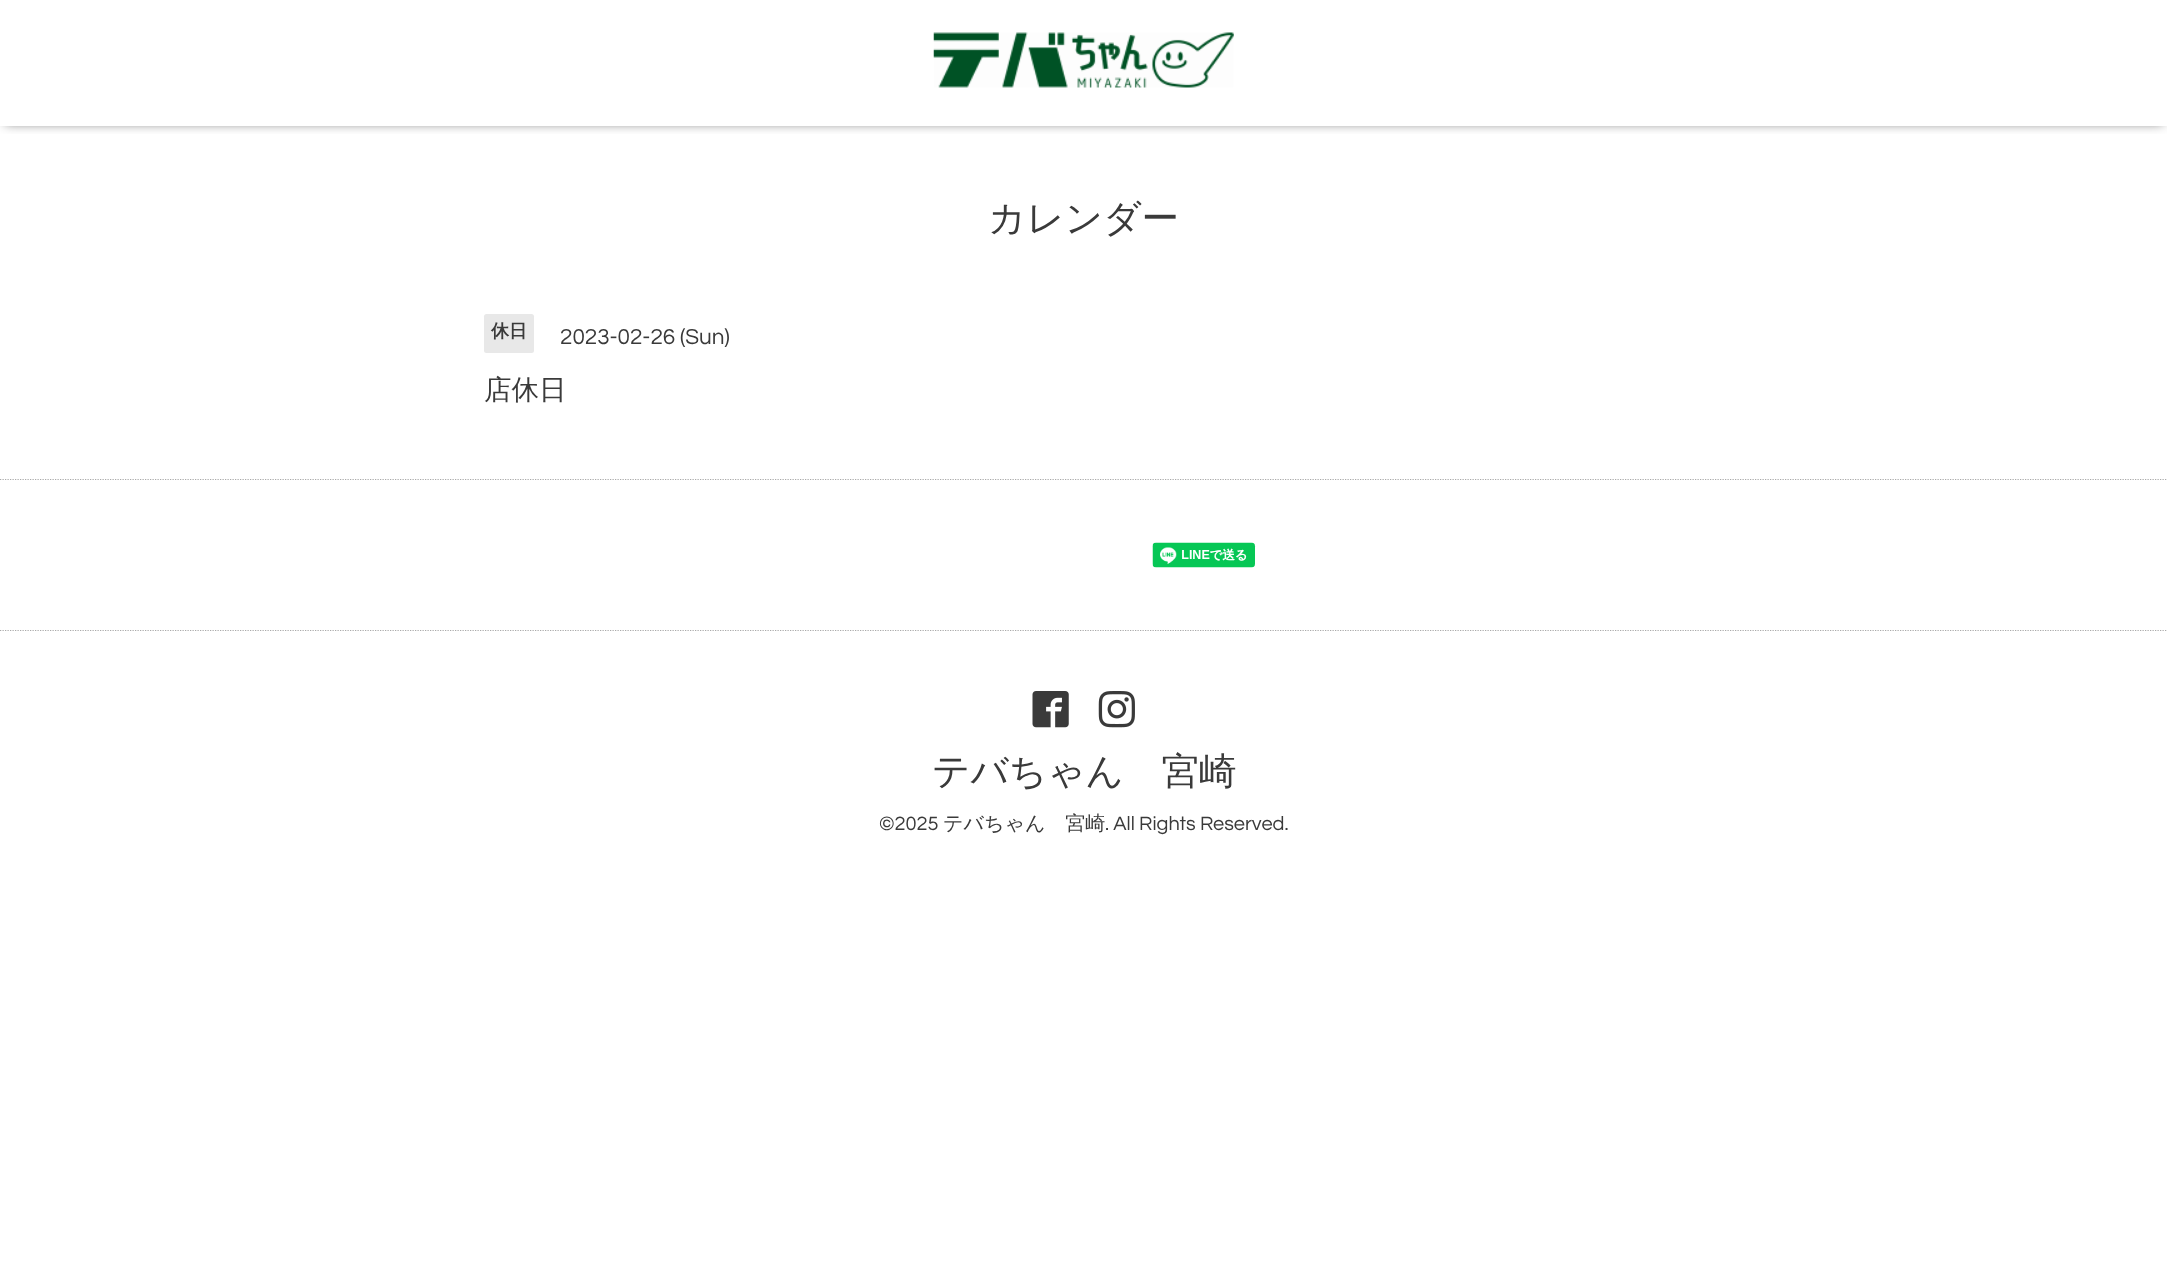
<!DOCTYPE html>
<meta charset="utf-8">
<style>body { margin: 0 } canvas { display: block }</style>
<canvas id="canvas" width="2167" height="1278"></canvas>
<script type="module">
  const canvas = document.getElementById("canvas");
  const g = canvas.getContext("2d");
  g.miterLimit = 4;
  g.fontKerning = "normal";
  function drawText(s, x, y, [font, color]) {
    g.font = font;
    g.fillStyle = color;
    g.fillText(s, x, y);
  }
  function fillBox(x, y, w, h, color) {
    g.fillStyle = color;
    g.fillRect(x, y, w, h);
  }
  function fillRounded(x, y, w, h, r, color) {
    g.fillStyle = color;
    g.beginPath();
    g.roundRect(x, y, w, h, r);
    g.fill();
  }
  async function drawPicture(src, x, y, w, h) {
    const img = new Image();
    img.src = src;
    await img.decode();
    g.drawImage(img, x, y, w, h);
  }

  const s1 = ["500 37.5px WenQuanYi Zen Hei", "#3A3A3A"];
  const s2 = ["bold 18px WenQuanYi Zen Hei", "#3A3A3A"];
  const s3 = ["22.5px Questrial", "#3A3A3A"];
  const s4 = ["500 27.5px WenQuanYi Zen Hei", "#3A3A3A"];
  const s5 = ["20px Questrial", "#3A3A3A"];
  const s6 = ["500 20px WenQuanYi Zen Hei", "#3A3A3A"];

  fillBox(0, 0, 2167, 1278, "#FFFFFF");
  g.save();
  g.beginPath();
  g.rect(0, 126, 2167, 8);
  g.clip();
  g.fillStyle = "rgba(0, 0, 0, 0.6)";
  g.filter = "blur(6px)";
  g.beginPath();
  g.rect(5, 6, 2158, 117);
  g.fill();
  g.filter = "none";
  g.restore();
  await drawPicture("pic1.png", 933, 32, 301, 56);
  drawText("カレンダー", 988, 231, s1);
  fillRounded(484, 314, 50, 39, 2.5, "#E8E8E8");
  drawText("休日", 491, 337, s2);
  drawText("2023-02-26 (Sun)", 560, 344, s3);
  drawText("店休日", 484, 399, s4);
  g.beginPath();
  g.moveTo(0, 479.5);
  g.lineTo(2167.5, 479.5);
  g.strokeStyle = "#A9A9A9";
  g.lineWidth = 1.2;
  g.setLineDash([1.25, 1.25]);
  g.stroke();
  await drawPicture("pic2.png", 1152, 542, 104, 26);
  g.beginPath();
  g.moveTo(0, 630.5);
  g.lineTo(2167.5, 630.5);
  g.stroke();
  await drawPicture("pic3.png", 1032, 691, 37, 37);
  await drawPicture("pic4.png", 1098, 691, 37, 37);
  drawText("テバちゃん　宮崎", 932, 784, s1);
  drawText("©2025", 879, 830, s5);
  drawText("テバちゃん　宮崎", 943, 830, s6);
  drawText(". All Rights Reserved.", 1105, 830, s5);
</script>
